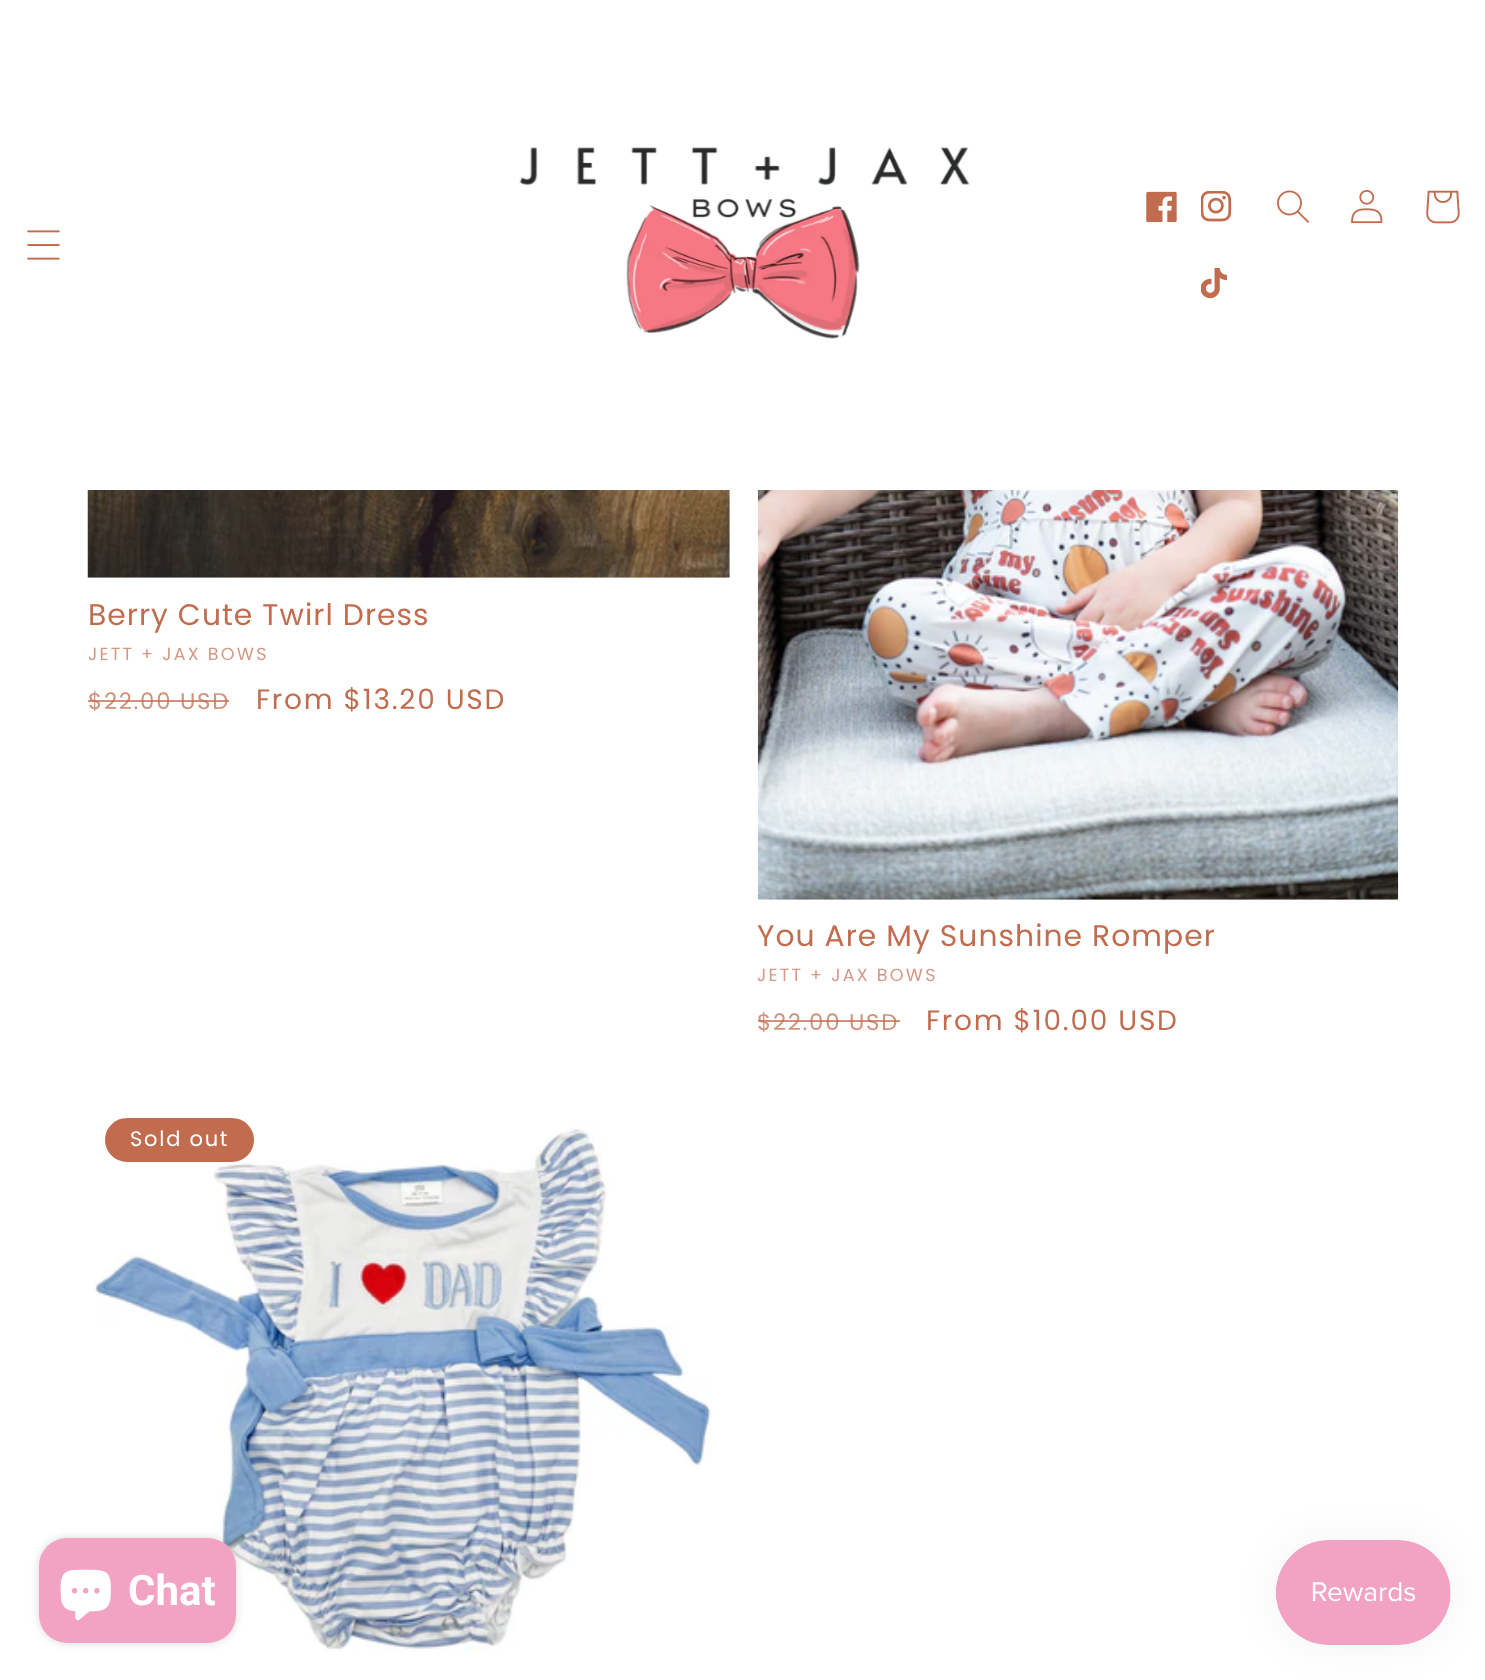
<!DOCTYPE html>
<meta charset="utf-8">
<style>body { margin: 0 } canvas { display: block }</style>
<canvas id="canvas" width="1485" height="1680"></canvas>
<script type="module">
  const canvas = document.getElementById("canvas");
  const g = canvas.getContext("2d");
  g.miterLimit = 4;
  g.fontKerning = "normal";
  function drawText(s, x, y, [font, color]) {
    g.font = font;
    g.fillStyle = color;
    g.fillText(s, x, y);
  }
  function fillBox(x, y, w, h, color) {
    g.fillStyle = color;
    g.fillRect(x, y, w, h);
  }
  function fillRounded(x, y, w, h, r, color) {
    g.fillStyle = color;
    g.beginPath();
    g.roundRect(x, y, w, h, r);
    g.fill();
  }
  async function drawPicture(src, x, y, w, h) {
    const img = new Image();
    img.src = src;
    await img.decode();
    g.drawImage(img, x, y, w, h);
  }

  const s1 = ["29.75px Poppins", "#C16C4F"];
  const s2 = ["17.5px Poppins", "#D49884"];
  const s3 = ["22.75px Poppins", "#D1917B"];
  const s4 = ["28px Poppins", "#C16C4F"];
  const s5 = ["21px Poppins", "#FFFFFF"];
  const s6 = ["bold 42px Roboto", "#FFFFFF"];

  fillBox(0, 0, 1485, 1680, "#FFFFFF");
  await drawPicture("pic1.png", 27, 230, 33, 30);
  await drawPicture("pic2.png", 519, 147, 451, 192);
  await drawPicture("pic3.png", 1146, 191, 31, 31);
  await drawPicture("pic4.png", 1201, 191, 31, 31);
  await drawPicture("pic5.png", 1201, 268, 26, 31);
  await drawPicture("pic6.png", 1277, 190, 32, 33);
  await drawPicture("pic7.png", 1351, 189, 32, 35);
  await drawPicture("pic8.png", 1426, 190, 34, 34);
  await drawPicture("pic9.png", 87, 490, 643, 88);
  g.letterSpacing = "1.05px";
  drawText("Berry Cute Twirl Dress", 88, 625, s1);
  g.letterSpacing = "2.25px";
  drawText("JETT + JAX BOWS", 88, 660, s2);
  g.letterSpacing = "1.75px";
  drawText("$22.00 USD", 88, 709, s3);
  fillBox(88, 700, 141, 2, "rgba(193, 108, 79, 0.75)");
  drawText("From $13.20 USD", 256, 709, s4);
  await drawPicture("pic10.png", 757, 490, 642, 410);
  g.letterSpacing = "1.05px";
  drawText("You Are My Sunshine Romper", 757, 946, s1);
  g.letterSpacing = "2.25px";
  drawText("JETT + JAX BOWS", 757, 981, s2);
  g.letterSpacing = "1.75px";
  drawText("$22.00 USD", 757, 1030, s3);
  fillBox(758, 1020, 142, 2, "rgba(193, 108, 79, 0.75)");
  drawText("From $10.00 USD", 926, 1030, s4);
  await drawPicture("pic11.png", 94, 1125, 619, 527);
  g.beginPath();
  g.roundRect(106, 1119, 147, 42, 21);
  g.fill();
  g.strokeStyle = "#C16C4F";
  g.lineWidth = 2;
  g.stroke();
  drawText("Sold out", 130, 1146, s5);
  g.fillStyle = "rgba(0, 0, 0, 0.15)";
  g.filter = "blur(4.5px)";
  g.beginPath();
  g.roundRect(39, 1538, 197, 105, 28);
  g.fill();
  g.filter = "none";
  fillRounded(39, 1538, 197, 105, 28, "#F2A3C3");
  await drawPicture("pic12.png", 60, 1569, 51, 52);
  g.letterSpacing = "0px";
  drawText("Chat", 128, 1605, s6);
  g.fillStyle = "rgba(0, 0, 0, 0.05)";
  g.filter = "blur(22px)";
  g.beginPath();
  g.roundRect(1276, 1540, 175, 105, 52.5);
  g.fill();
  g.filter = "none";
  await drawPicture("pic13.png", 1276, 1540, 175, 105);
</script>
